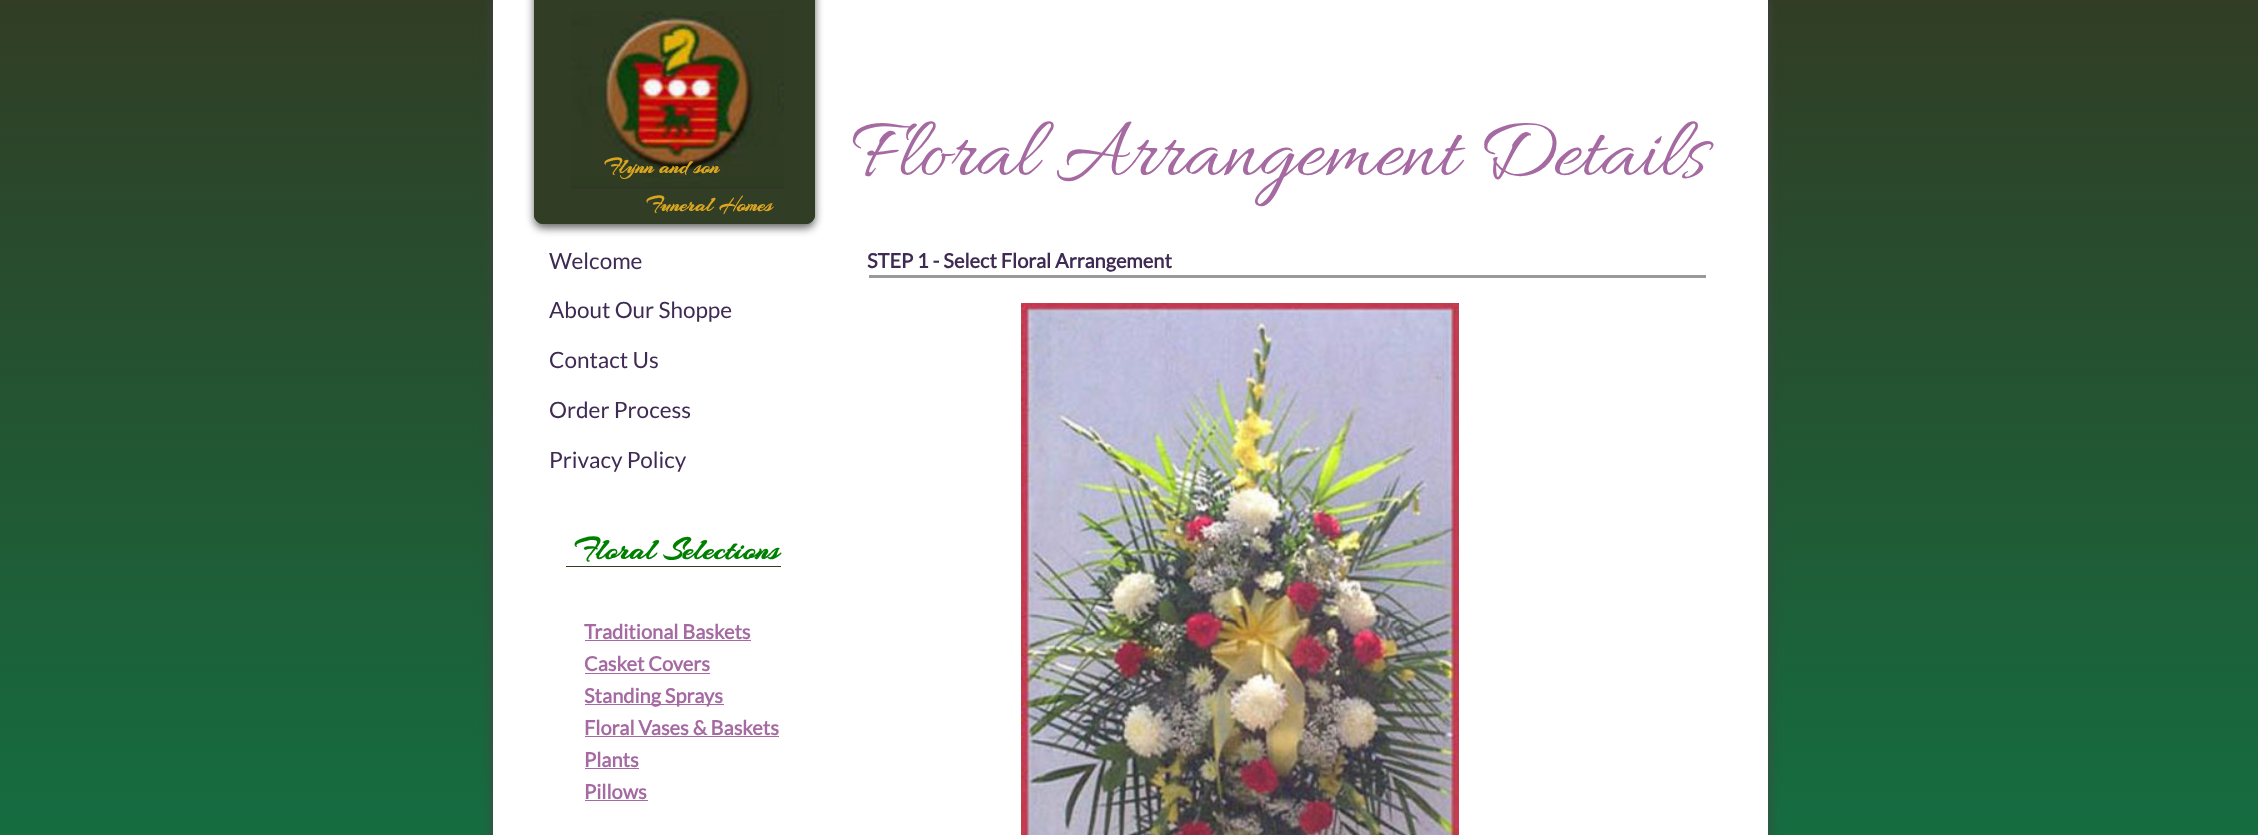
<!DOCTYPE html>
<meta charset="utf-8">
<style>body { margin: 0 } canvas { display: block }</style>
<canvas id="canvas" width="2258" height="835"></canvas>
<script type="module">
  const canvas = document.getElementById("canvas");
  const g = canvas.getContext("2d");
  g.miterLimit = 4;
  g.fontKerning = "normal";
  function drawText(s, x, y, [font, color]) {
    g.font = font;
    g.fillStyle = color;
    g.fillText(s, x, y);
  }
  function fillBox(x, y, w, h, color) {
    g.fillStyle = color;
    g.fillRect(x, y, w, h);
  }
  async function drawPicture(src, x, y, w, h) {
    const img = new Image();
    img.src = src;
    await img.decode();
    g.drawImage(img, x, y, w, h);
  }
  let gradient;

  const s1 = ["87.5px Allura", "#A66AA2"];
  const s2 = ["bold 22.5px Arizonia", "#DAA520"];
  const s3 = ["22.5px Lato", "#3F2A53"];
  const s4 = ["bold 20px Lato", "#3F2A53"];
  const s5 = ["bold 32.5px Arizonia", "#008000"];
  const s6 = ["bold 20px Lato", "#A66AA2"];

  fillBox(0, 0, 2258, 835, "#FFFFFF");
  gradient = g.createLinearGradient(1129, 0, 1129, 835);
  gradient.addColorStop(0, "#313D25");
  gradient.addColorStop(1, "#156D40");
  g.fillStyle = gradient;
  g.fillRect(0, 0, 2258, 835);
  g.fillStyle = "#444444";
  g.filter = "blur(6px)";
  g.beginPath();
  g.rect(493, 0, 1275, 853);
  g.fill();
  g.filter = "none";
  fillBox(493, 0, 1275, 835, "#FFFFFF");
  g.fillStyle = "rgba(50, 50, 50, 0.75)";
  g.filter = "blur(4.5px)";
  g.beginPath();
  g.roundRect(534, -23, 281, 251, 9);
  g.fill();
  g.filter = "none";
  g.fillStyle = "#313D25";
  g.beginPath();
  g.roundRect(534, 0, 281, 224, [0, 0, 9, 9]);
  g.fill();
  g.beginPath();
  g.roundRect(534.5, -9.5, 280, 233, 8.5);
  g.strokeStyle = "#313D25";
  g.stroke();
  await drawPicture("pic1.png", 571, 11, 213, 178);
  drawText("Floral Arrangement Details", 852, 174, s1);
  drawText("Flynn and son", 604, 173, s2);
  drawText("Funeral Homes", 646, 211, s2);
  drawText("Welcome", 549, 269, s3);
  drawText("About Our Shoppe", 549, 318, s3);
  drawText("Contact Us", 549, 368, s3);
  drawText("Order Process", 549, 418, s3);
  drawText("Privacy Policy", 549, 468, s3);
  drawText("STEP 1 - Select Floral Arrangement", 867, 268, s4);
  fillBox(869, 275, 837, 3, "#999999");
  drawText("Floral Selections", 574, 559, s5);
  await drawPicture("pic2.png", 1021, 303, 438, 532);
  fillBox(566, 566, 215, 1, "#313D25");
  drawText("Traditional Baskets", 584, 639, s6);
  fillBox(585, 640, 166, 1, "#A66AA2");
  drawText("Casket Covers", 584, 671, s6);
  fillBox(585, 673, 125, 1, "#A66AA2");
  fillBox(585, 704, 139, 1, "#A66AA2");
  drawText("Standing Sprays", 584, 703, s6);
  drawText("Floral Vases & Baskets", 584, 735, s6);
  fillBox(585, 736, 194, 1, "#A66AA2");
  drawText("Plants", 584, 767, s6);
  fillBox(585, 768, 54, 1, "#A66AA2");
  drawText("Pillows", 584, 799, s6);
  fillBox(585, 800, 63, 1, "#A66AA2");
</script>
